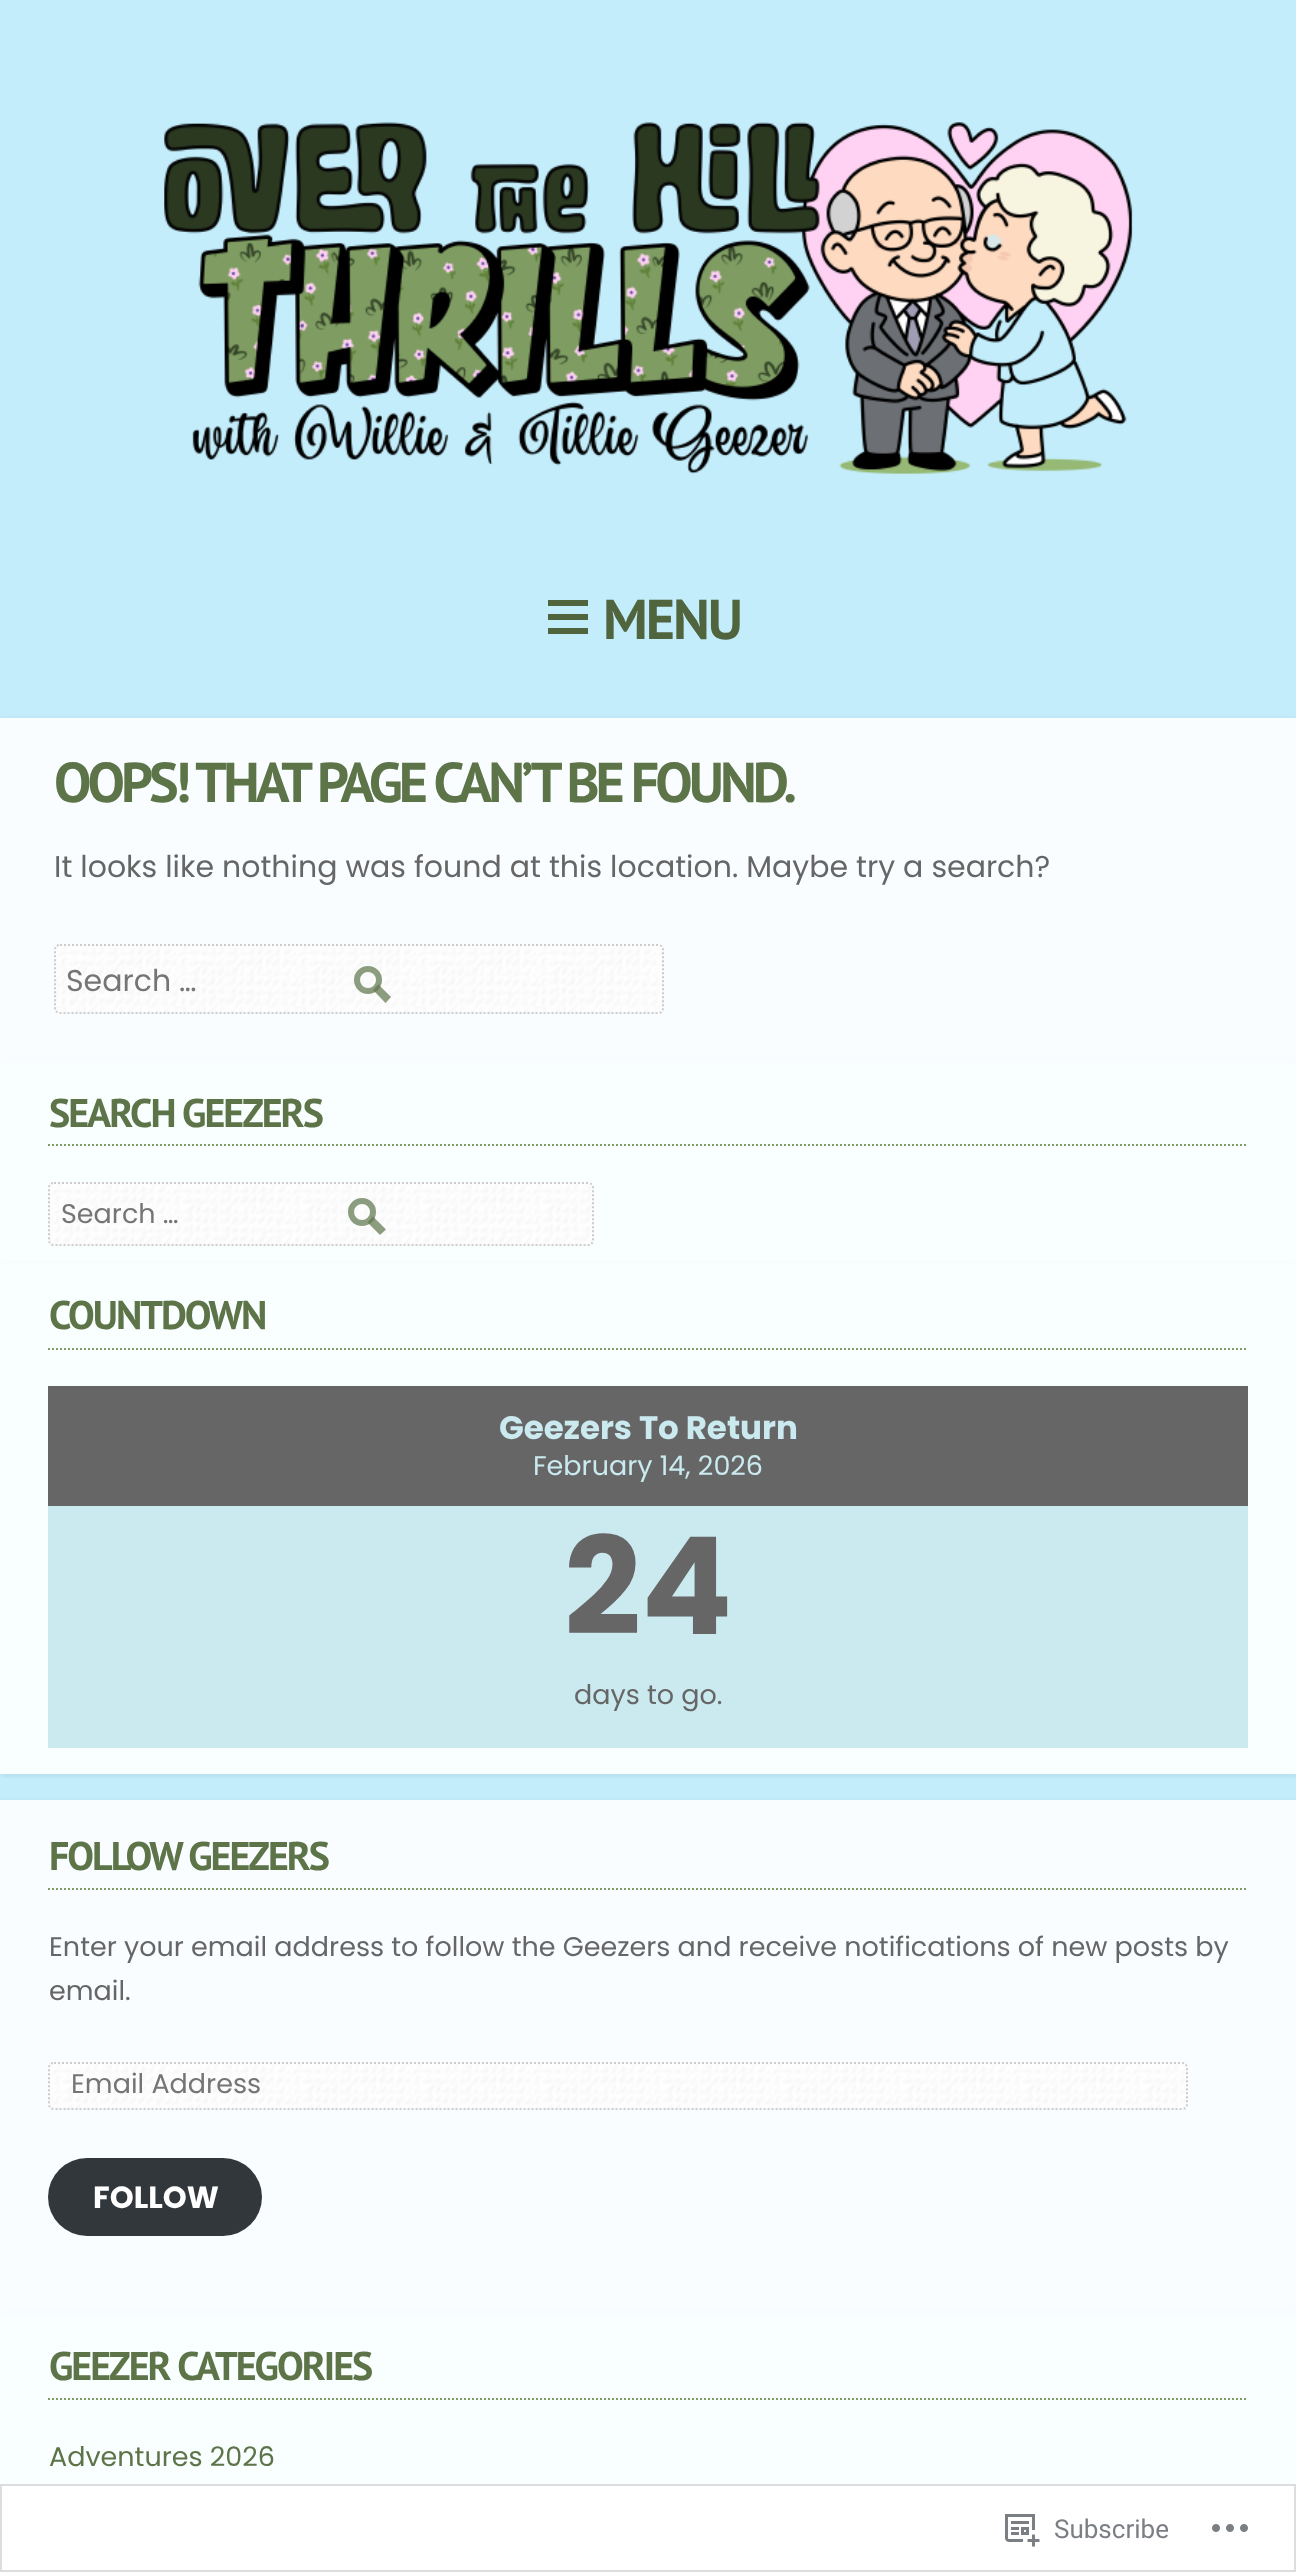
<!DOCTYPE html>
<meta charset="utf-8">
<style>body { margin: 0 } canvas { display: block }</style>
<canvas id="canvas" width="1296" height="2572"></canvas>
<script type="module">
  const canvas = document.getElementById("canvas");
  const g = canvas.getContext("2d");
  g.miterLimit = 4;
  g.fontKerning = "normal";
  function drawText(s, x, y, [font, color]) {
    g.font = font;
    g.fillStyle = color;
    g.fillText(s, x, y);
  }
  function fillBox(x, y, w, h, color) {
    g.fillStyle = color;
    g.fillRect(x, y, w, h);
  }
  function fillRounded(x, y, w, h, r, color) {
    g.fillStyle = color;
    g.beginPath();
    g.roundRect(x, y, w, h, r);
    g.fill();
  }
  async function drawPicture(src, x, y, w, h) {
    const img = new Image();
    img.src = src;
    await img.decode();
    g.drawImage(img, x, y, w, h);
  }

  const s1 = ["bold 56px PT Sans", "#50643E"];
  const s2 = ["bold 56px PT Sans", "#5C7448"];
  const s3 = ["30px Poppins", "#666666"];
  const s4 = ["30px Poppins", "#757575"];
  const s5 = ["bold 40px PT Sans", "#5C7448"];
  const s6 = ["27px Poppins", "#757575"];
  const s7 = ["bold 32.5px Poppins", "#CAEAF0"];
  const s8 = ["27px Poppins", "#CAEAF0"];
  const s9 = ["bold 135px Poppins", "#666666"];
  const s10 = ["27px Poppins", "#666666"];
  const s11 = ["bold 30.5px Poppins", "#FFFFFF"];
  const s12 = ["27px Poppins", "#5C7448"];
  const s13 = ["26px Roboto", "#7B7F84"];

  fillBox(0, 0, 1296, 2572, "#C3EDFB");
  await drawPicture("pic1.png", 164, 122, 969, 352);
  fillBox(548, 614, 40, 6, "#50643E");
  fillBox(548, 600, 40, 6, "#50643E");
  fillBox(548, 628, 40, 6, "#50643E");
  g.letterSpacing = "-2px";
  drawText("MENU", 603, 639, s1);
  g.fillStyle = "rgba(0, 0, 0, 0.08)";
  g.filter = "blur(3px)";
  g.beginPath();
  g.rect(2, 720, 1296, 338);
  g.fill();
  g.filter = "none";
  fillBox(0, 718, 1296, 338, "#F9FDFF");
  g.letterSpacing = "-4px";
  drawText("OOPS! THAT PAGE CAN’T BE FOUND.", 54, 802, s2);
  g.letterSpacing = "0px";
  drawText("It looks like nothing was found at this location. Maybe try a search?", 54, 877, s3);
  fillRounded(54, 944, 610, 70, 6, "#FFFFFF");
  await drawPicture("pic2.png", 54, 944, 610, 70);
  g.beginPath();
  g.moveTo(60, 945);
  g.lineTo(658, 945);
  g.bezierCurveTo(661, 945, 663, 947, 663, 950);
  g.lineTo(663, 1008);
  g.bezierCurveTo(663, 1011, 661, 1013, 658, 1013);
  g.lineTo(60, 1013);
  g.bezierCurveTo(57, 1013, 55, 1011, 55, 1008);
  g.lineTo(55, 950);
  g.bezierCurveTo(55, 947, 57, 945, 60, 945);
  g.closePath();
  g.strokeStyle = "#CCCCCC";
  g.lineWidth = 2;
  g.setLineDash([2, 2]);
  g.stroke();
  drawText("Search …", 66, 991, s4);
  g.beginPath();
  g.arc(368, 980, 11, 0, Math.PI * 2);
  g.strokeStyle = "rgba(92, 116, 72, 0.7)";
  g.lineWidth = 6;
  g.setLineDash([]);
  g.stroke();
  g.fillStyle = "rgba(92, 116, 72, 0.7)";
  g.beginPath();
  g.moveTo(373, 990);
  g.lineTo(378.5, 984.5);
  g.lineTo(391, 997);
  g.lineTo(385.5, 1003);
  g.closePath();
  g.fill();
  g.save();
  g.beginPath();
  g.rect(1, 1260, 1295, 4);
  g.clip();
  g.fillStyle = "rgba(0, 0, 0, 0.08)";
  g.filter = "blur(3px)";
  g.beginPath();
  g.rect(2, 1058, 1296, 204);
  g.fill();
  g.filter = "none";
  g.restore();
  fillBox(0, 1056, 1296, 204, "rgba(255, 255, 255, 0.9)");
  g.beginPath();
  g.moveTo(48, 1145);
  g.lineTo(1248, 1145);
  g.strokeStyle = "#7F9D63";
  g.lineWidth = 2;
  g.setLineDash([2, 2]);
  g.stroke();
  g.letterSpacing = "-2px";
  drawText("SEARCH GEEZERS", 49, 1127, s5);
  fillRounded(48, 1182, 546, 64, 6, "#FFFFFF");
  await drawPicture("pic3.png", 48, 1182, 546, 64);
  g.beginPath();
  g.moveTo(54, 1183);
  g.lineTo(588, 1183);
  g.bezierCurveTo(591, 1183, 593, 1185, 593, 1188);
  g.lineTo(593, 1240);
  g.bezierCurveTo(593, 1243, 591, 1245, 588, 1245);
  g.lineTo(54, 1245);
  g.bezierCurveTo(51, 1245, 49, 1243, 49, 1240);
  g.lineTo(49, 1188);
  g.bezierCurveTo(49, 1185, 51, 1183, 54, 1183);
  g.closePath();
  g.strokeStyle = "#CCCCCC";
  g.stroke();
  g.letterSpacing = "0px";
  drawText("Search …", 61, 1223, s6);
  g.beginPath();
  g.arc(362, 1212, 11, 0, Math.PI * 2);
  g.strokeStyle = "rgba(92, 116, 72, 0.7)";
  g.lineWidth = 6;
  g.setLineDash([]);
  g.stroke();
  g.fillStyle = "rgba(92, 116, 72, 0.7)";
  g.beginPath();
  g.moveTo(367.5, 1222.5);
  g.lineTo(373, 1216.5);
  g.lineTo(386, 1229.5);
  g.lineTo(380, 1235);
  g.closePath();
  g.fill();
  g.save();
  g.beginPath();
  g.rect(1, 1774, 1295, 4);
  g.clip();
  g.fillStyle = "rgba(0, 0, 0, 0.08)";
  g.filter = "blur(3px)";
  g.beginPath();
  g.rect(2, 1262, 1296, 514);
  g.fill();
  g.filter = "none";
  g.restore();
  fillBox(0, 1260, 1296, 514, "rgba(255, 255, 255, 0.9)");
  g.beginPath();
  g.moveTo(48, 1349);
  g.lineTo(1248, 1349);
  g.strokeStyle = "#7F9D63";
  g.lineWidth = 2;
  g.setLineDash([2, 2]);
  g.stroke();
  g.letterSpacing = "-2px";
  drawText("COUNTDOWN", 49, 1329, s5);
  fillBox(48, 1386, 1200, 120, "#666666");
  g.letterSpacing = "0px";
  drawText("Geezers To Return", 499, 1439, s7);
  drawText("February 14, 2026", 533, 1475, s8);
  fillBox(48, 1506, 1200, 242, "#CAEAF0");
  drawText("24", 564, 1634, s9);
  drawText("days to go.", 574, 1704, s10);
  g.fillStyle = "rgba(0, 0, 0, 0.08)";
  g.filter = "blur(3px)";
  g.beginPath();
  g.rect(2, 1802, 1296, 510);
  g.fill();
  g.filter = "none";
  fillBox(0, 1800, 1296, 510, "#F9FDFF");
  g.beginPath();
  g.moveTo(48, 1889);
  g.lineTo(1248, 1889);
  g.stroke();
  g.letterSpacing = "-2px";
  drawText("FOLLOW GEEZERS", 49, 1870, s5);
  g.letterSpacing = "0px";
  drawText("Enter your email address to follow the Geezers and receive notifications of new posts by", 49, 1956, s10);
  drawText("email.", 49, 2000, s10);
  fillRounded(48, 2062, 1140, 48, 6, "#FFFFFF");
  await drawPicture("pic4.png", 48, 2062, 1140, 48);
  g.beginPath();
  g.moveTo(54, 2063);
  g.lineTo(1182, 2063);
  g.bezierCurveTo(1185, 2063, 1187, 2065, 1187, 2068);
  g.lineTo(1187, 2104);
  g.bezierCurveTo(1187, 2107, 1185, 2109, 1182, 2109);
  g.lineTo(54, 2109);
  g.bezierCurveTo(51, 2109, 49, 2107, 49, 2104);
  g.lineTo(49, 2068);
  g.bezierCurveTo(49, 2065, 51, 2063, 54, 2063);
  g.closePath();
  g.strokeStyle = "#CCCCCC";
  g.stroke();
  drawText("Email Address", 71, 2093, s6);
  fillRounded(48, 2158, 214, 78, 39, "#32373C");
  drawText("FOLLOW", 93, 2208, s11);
  g.save();
  g.beginPath();
  g.rect(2, 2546, 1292, 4);
  g.clip();
  g.fillStyle = "rgba(0, 0, 0, 0.08)";
  g.filter = "blur(3px)";
  g.beginPath();
  g.rect(2, 2312, 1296, 236);
  g.fill();
  g.filter = "none";
  g.restore();
  fillBox(0, 2310, 1296, 236, "rgba(255, 255, 255, 0.9)");
  g.beginPath();
  g.moveTo(48, 2399);
  g.lineTo(1248, 2399);
  g.strokeStyle = "#7F9D63";
  g.stroke();
  g.letterSpacing = "-2px";
  drawText("GEEZER CATEGORIES", 49, 2380, s5);
  g.letterSpacing = "0px";
  drawText("Adventures 2026", 49, 2466, s12);
  fillBox(2, 2546, 1292, 24, "rgba(255, 255, 255, 0.9)");
  g.fillStyle = "rgba(255, 255, 255, 0.98)";
  g.beginPath();
  g.rect(1, 2485, 1294, 86);
  g.fill();
  g.strokeStyle = "#DDDDDF";
  g.setLineDash([]);
  g.stroke();
  await drawPicture("pic5.png", 1005, 2514, 35, 33);
  drawText("Subscribe", 1054, 2538, s13);
  await drawPicture("pic6.png", 1212, 2524, 36, 8);
</script>
